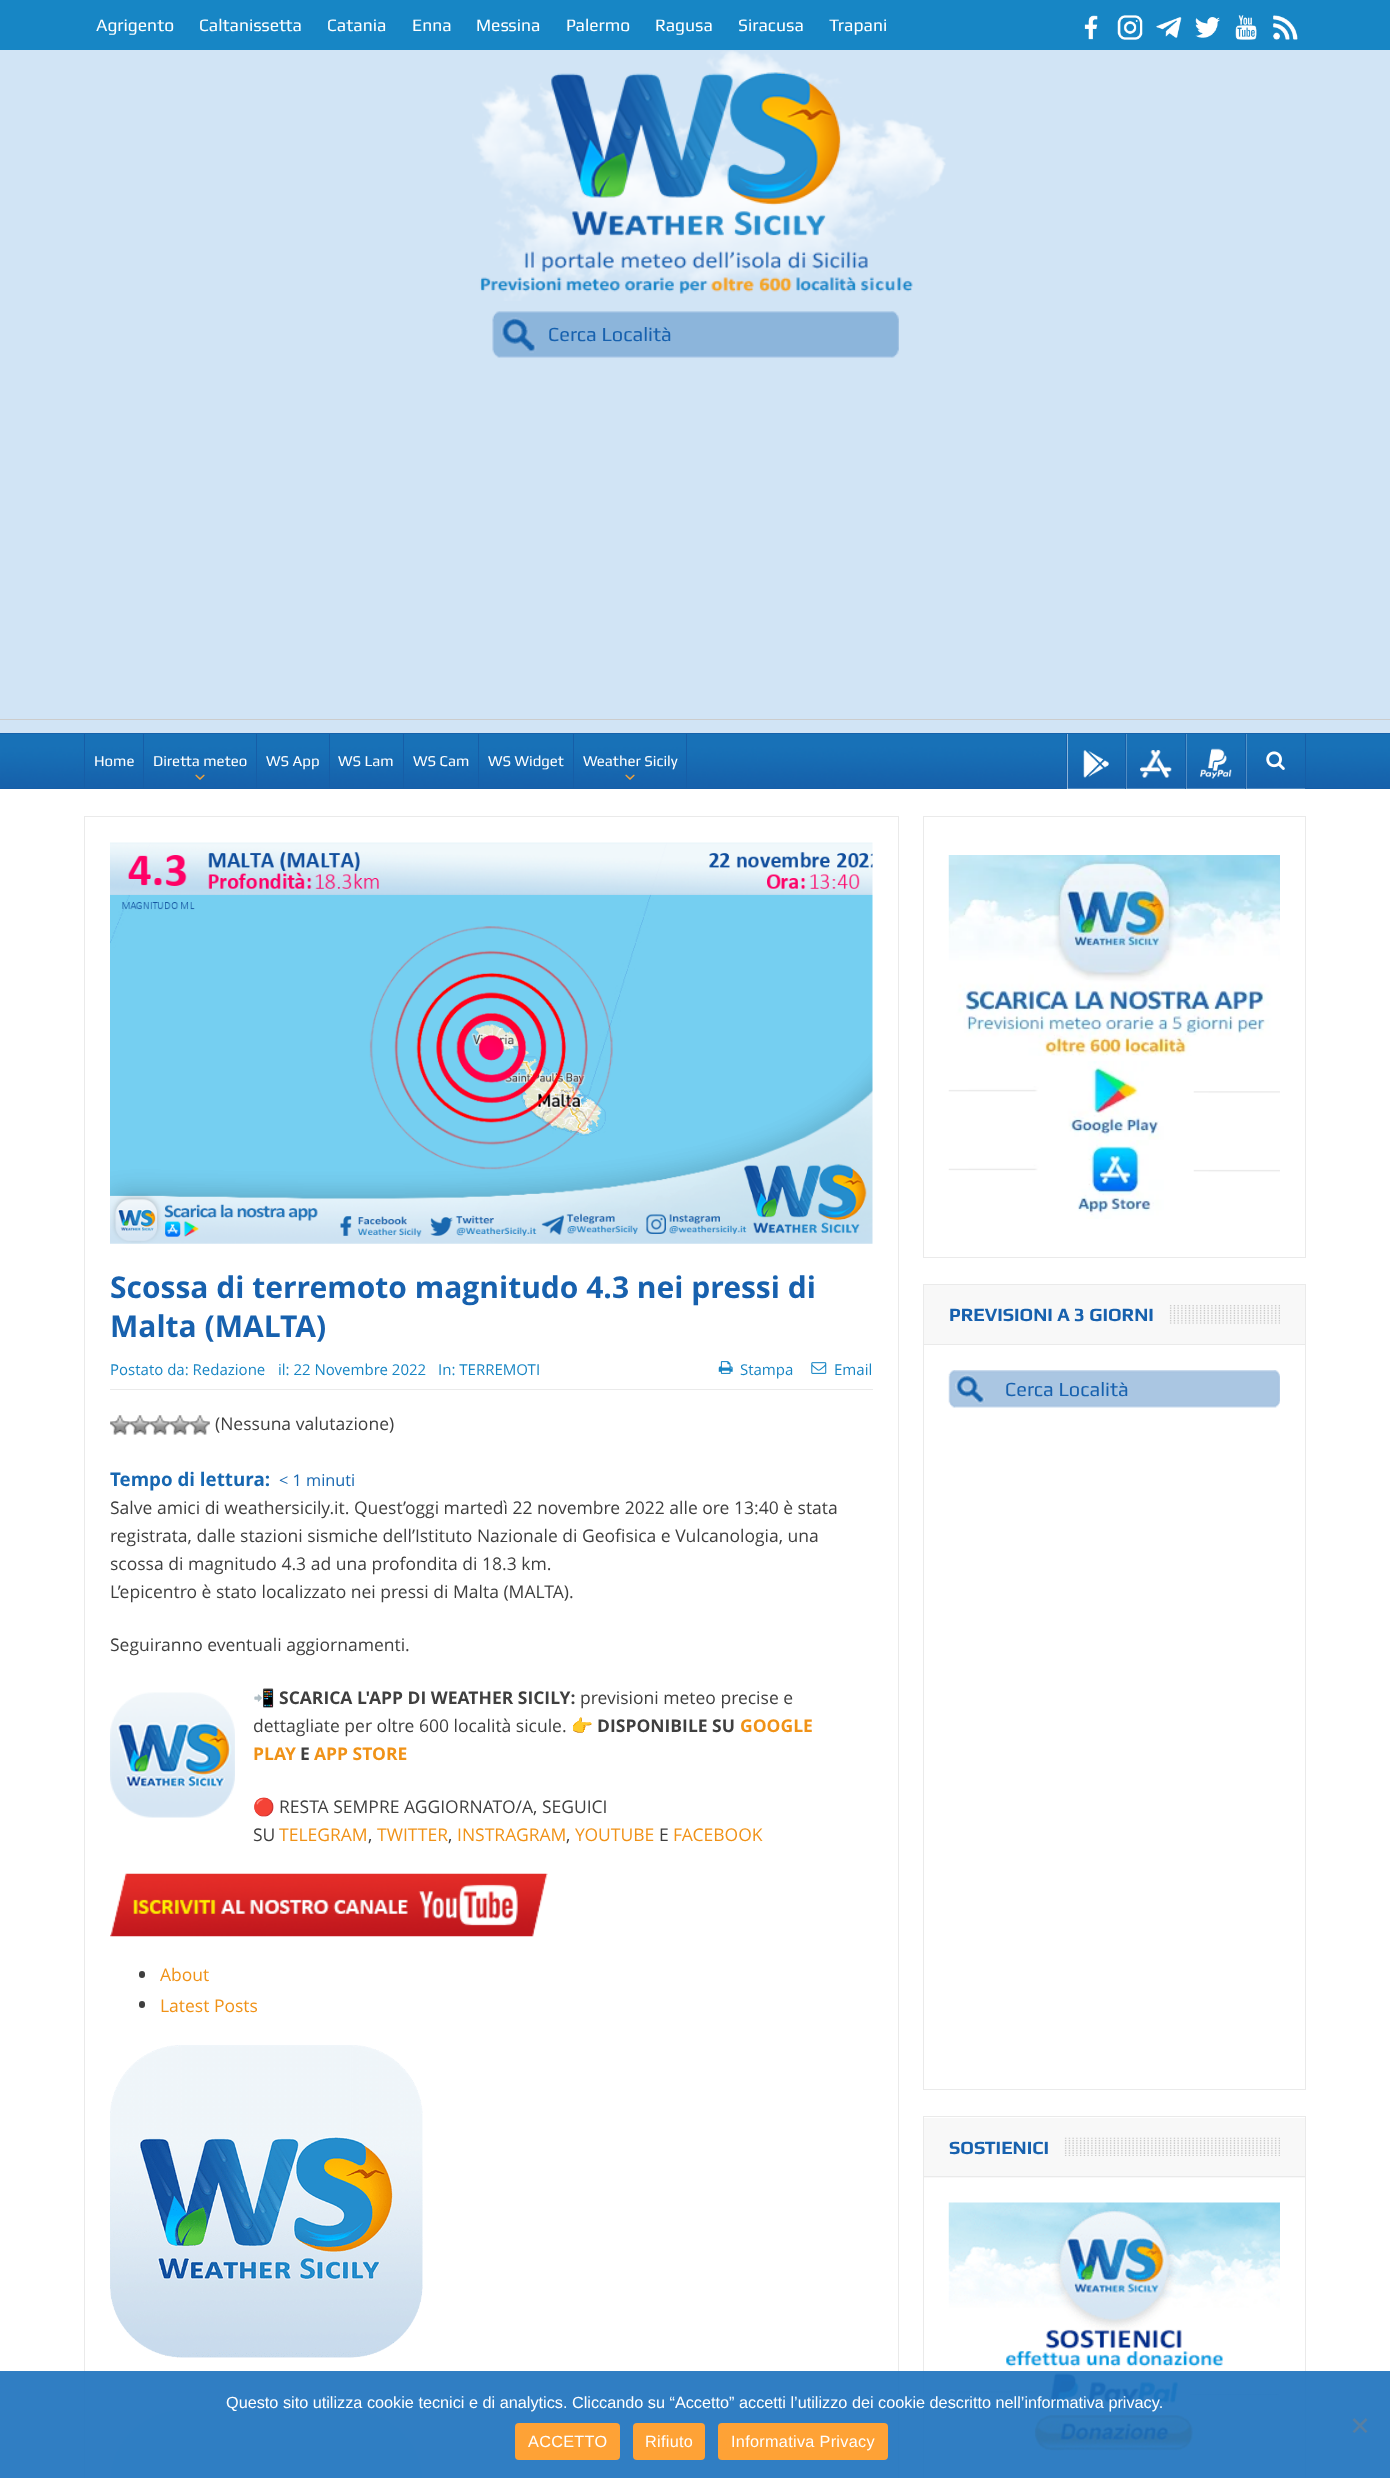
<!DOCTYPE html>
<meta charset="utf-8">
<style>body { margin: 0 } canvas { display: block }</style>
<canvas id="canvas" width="1390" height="2478"></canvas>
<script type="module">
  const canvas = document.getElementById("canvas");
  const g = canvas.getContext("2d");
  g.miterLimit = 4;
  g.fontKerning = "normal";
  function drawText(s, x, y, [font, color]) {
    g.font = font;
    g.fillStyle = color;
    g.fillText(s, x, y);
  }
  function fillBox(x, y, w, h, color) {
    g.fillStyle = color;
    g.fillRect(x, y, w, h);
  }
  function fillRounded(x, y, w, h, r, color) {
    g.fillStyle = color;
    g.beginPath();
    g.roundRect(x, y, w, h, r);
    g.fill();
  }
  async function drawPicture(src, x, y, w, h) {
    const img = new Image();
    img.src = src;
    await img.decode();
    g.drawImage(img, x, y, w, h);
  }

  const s1 = ["17.5px Play", "#FFFFFF"];
  const s2 = ["20px Play", "#1761AE"];
  const s3 = ["15px Play", "#FFFFFF"];
  const s4 = ["bold 30px Open Sans", "#1761AE"];
  const s5 = ["15px Open Sans", "#1785C4"];
  const s6 = ["17.5px Open Sans", "#3F3F3F"];
  const s7 = ["bold 18.75px Open Sans", "#1767B1"];
  const s8 = ["16.25px Open Sans", "#1767B1"];
  const s9 = ["17.5px Noto Color Emoji", "#3F3F3F"];
  const s10 = ["bold 17.5px Open Sans", "#3F3F3F"];
  const s11 = ["bold 17.5px Open Sans", "#F09217"];
  const s12 = ["17.5px Open Sans", "#F09217"];
  const s13 = ["bold 18.75px Play", "#1761AE"];
  const s14 = ["16.25px Liberation Sans", "#FFFFFF"];

  fillBox(0, 0, 1390, 2478, "#D1E4F5");
  fillBox(0, 0, 1390, 50, "#1786C5");
  drawText("Agrigento", 96, 31, s1);
  drawText("Caltanissetta", 199, 31, s1);
  drawText("Catania", 327, 31, s1);
  drawText("Enna", 412, 31, s1);
  drawText("Messina", 476, 31, s1);
  drawText("Palermo", 566, 31, s1);
  drawText("Ragusa", 655, 31, s1);
  drawText("Siracusa", 738, 31, s1);
  drawText("Trapani", 829, 31, s1);
  await drawPicture("pic1.png", 1084, 15, 14, 25);
  await drawPicture("pic2.png", 1117, 15, 26, 25);
  await drawPicture("pic3.png", 1156, 17, 26, 21);
  await drawPicture("pic4.png", 1195, 17, 25, 21);
  await drawPicture("pic5.png", 1235, 15, 22, 25);
  await drawPicture("pic6.png", 1273, 15, 25, 25);
  await drawPicture("pic7.png", 472, 50, 474, 251);
  await drawPicture("pic8.png", 492, 311, 407, 47);
  drawText("Cerca Località", 548, 341, s2);
  fillBox(0, 719, 1390, 1, "#CCCCCC");
  fillBox(0, 733, 1390, 1, "#165EA7");
  await drawPicture("pic9.png", 0, 733, 1390, 55);
  fillBox(0, 788, 1390, 1, "#165EA7");
  fillBox(84, 734, 1, 55, "#165EA7");
  drawText("Home", 94, 766, s3);
  fillBox(143, 734, 1, 55, "#165EA7");
  drawText("Diretta meteo", 153, 766, s3);
  await drawPicture("pic10.png", 195, 774, 10, 6);
  fillBox(256, 734, 1, 55, "#165EA7");
  drawText("WS App", 266, 766, s3);
  fillBox(329, 734, 1, 55, "#165EA7");
  drawText("WS Lam", 338, 766, s3);
  fillBox(403, 734, 1, 55, "#165EA7");
  drawText("WS Cam", 413, 766, s3);
  fillBox(478, 734, 1, 55, "#165EA7");
  drawText("WS Widget", 488, 766, s3);
  fillBox(686, 734, 1, 55, "#165EA7");
  fillBox(573, 734, 1, 55, "#165EA7");
  drawText("Weather Sicily", 583, 766, s3);
  await drawPicture("pic11.png", 625, 774, 10, 6);
  fillBox(1067, 734, 58, 55, "#FFFFFF");
  await drawPicture("pic12.png", 1067, 734, 58, 55);
  fillBox(1125, 734, 1, 55, "#165EA7");
  fillBox(1066, 734, 1, 55, "#165EA7");
  await drawPicture("pic13.png", 1083, 750, 26, 28);
  fillBox(1126, 734, 59, 55, "#FFFFFF");
  await drawPicture("pic14.png", 1126, 734, 59, 55);
  fillBox(1185, 734, 1, 55, "#165EA7");
  await drawPicture("pic15.png", 1140, 750, 32, 28);
  fillBox(1186, 734, 59, 55, "#FFFFFF");
  await drawPicture("pic14.png", 1186, 734, 59, 55);
  fillBox(1245, 734, 1, 55, "#165EA7");
  await drawPicture("pic16.png", 1200, 748, 32, 31);
  fillBox(1246, 734, 59, 55, "#FFFFFF");
  await drawPicture("pic17.png", 1246, 734, 59, 55);
  fillBox(1305, 734, 1, 55, "#165EA7");
  await drawPicture("pic18.png", 1266, 751, 19, 19);
  fillBox(0, 789, 1390, 1689, "#FFFFFF");
  g.strokeStyle = "#EAEAEA";
  g.strokeRect(84.5, 816.5, 814, 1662);
  await drawPicture("pic19.png", 110, 842, 763, 402);
  drawText("Scossa di terremoto magnitudo 4.3 nei pressi di", 110, 1298, s4);
  drawText("Malta (MALTA)", 110, 1337, s4);
  fillBox(110, 1389, 763, 1, "#EAEAEA");
  drawText("Postato da: Redazione", 110, 1375, s5);
  drawText("il: 22 Novembre 2022", 278, 1375, s5);
  drawText("In: TERREMOTI", 438, 1375, s5);
  await drawPicture("pic20.png", 718, 1361, 15, 13);
  drawText("Stampa", 740, 1375, s5);
  await drawPicture("pic21.png", 811, 1362, 16, 12);
  drawText("Email", 834, 1375, s5);
  await drawPicture("pic22.png", 110, 1415, 20, 20);
  await drawPicture("pic22.png", 130, 1415, 20, 20);
  await drawPicture("pic22.png", 150, 1415, 20, 20);
  await drawPicture("pic22.png", 170, 1415, 20, 20);
  await drawPicture("pic22.png", 190, 1415, 20, 20);
  drawText("(Nessuna valutazione)", 215, 1430, s6);
  drawText("Tempo di lettura:", 110, 1486, s7);
  drawText("< 1 minuti", 279, 1486, s8);
  drawText("Salve amici di weathersicily.it. Quest’oggi martedì 22 novembre 2022 alle ore 13:40 è stata", 110, 1514, s6);
  drawText("registrata, dalle stazioni sismiche dell’Istituto Nazionale di Geofisica e Vulcanologia, una", 110, 1542, s6);
  drawText("scossa di magnitudo 4.3 ad una profondita di 18.3 km.", 110, 1570, s6);
  drawText("L’epicentro è stato localizzato nei pressi di Malta (MALTA).", 110, 1598, s6);
  drawText("Seguiranno eventuali aggiornamenti.", 110, 1651, s6);
  await drawPicture("pic23.png", 110, 1692, 125, 126);
  drawText("📲", 253, 1704, s9);
  drawText("SCARICA L'APP DI WEATHER SICILY:", 279, 1704, s10);
  drawText("previsioni meteo precise e", 580, 1704, s6);
  drawText("dettagliate per oltre 600 località sicule.", 253, 1732, s6);
  drawText("👉", 571, 1732, s9);
  drawText("DISPONIBILE SU", 597, 1732, s10);
  drawText("GOOGLE", 740, 1732, s11);
  drawText("PLAY", 253, 1760, s11);
  drawText("E", 300, 1760, s10);
  drawText("APP STORE", 314, 1760, s11);
  drawText("🔴", 253, 1813, s9);
  drawText("RESTA SEMPRE AGGIORNATO/A, SEGUICI", 279, 1813, s6);
  drawText("SU", 253, 1841, s6);
  drawText("TELEGRAM", 279, 1841, s12);
  drawText(",", 368, 1841, s6);
  drawText("TWITTER", 377, 1841, s12);
  drawText(",", 448, 1841, s6);
  drawText("INSTRAGRAM", 457, 1841, s12);
  drawText(",", 566, 1841, s6);
  drawText("YOUTUBE", 575, 1841, s12);
  drawText("E", 659, 1841, s6);
  drawText("FACEBOOK", 673, 1841, s12);
  await drawPicture("pic24.png", 110, 1873, 438, 64);
  fillRounded(139, 1971, 6, 7, 3, "#3F3F3F");
  drawText("About", 160, 1981, s12);
  fillRounded(139, 2001, 6, 7, 3, "#3F3F3F");
  drawText("Latest Posts", 160, 2012, s12);
  await drawPicture("pic25.png", 110, 2045, 313, 313);
  await drawPicture("pic26.png", 110, 2410, 313, 68);
  g.strokeRect(923.5, 816.5, 382, 441);
  await drawPicture("pic27.png", 948, 855, 332, 201);
  await drawPicture("pic28.png", 948, 1061, 332, 79);
  await drawPicture("pic29.png", 948, 1140, 332, 79);
  g.strokeRect(923.5, 1284.5, 382, 805);
  fillBox(924, 1285, 381, 59, "#F8F8F8");
  fillBox(924, 1344, 381, 1, "#EAEAEA");
  await drawPicture("pic30.png", 1169, 1305, 111, 19);
  drawText("PREVISIONI A 3 GIORNI", 949, 1321, s13);
  await drawPicture("pic31.png", 948, 1370, 332, 38);
  drawText("Cerca Località", 1005, 1396, s2);
  g.strokeRect(923.5, 2116.5, 382, 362);
  fillBox(924, 2118, 381, 60, "#F8F8F8");
  fillBox(924, 2176, 381, 1, "#EAEAEA");
  await drawPicture("pic32.png", 1064, 2137, 216, 19);
  drawText("SOSTIENICI", 949, 2154, s13);
  await drawPicture("pic33.png", 948, 2202, 332, 250);
  fillBox(0, 2371, 1390, 107, "rgba(30, 115, 190, 0.92)");
  drawText("Questo sito utilizza cookie tecnici e di analytics. Cliccando su “Accetto” accetti l’utilizzo dei cookie descritto nell’informativa privacy.", 226, 2408, s14);
  g.fillStyle = "#587FA2";
  g.beginPath();
  g.moveTo(1365.5, 2418);
  g.lineTo(1367.5, 2420);
  g.lineTo(1354.5, 2433);
  g.lineTo(1352.5, 2431.5);
  g.closePath();
  g.fill();
  g.beginPath();
  g.moveTo(1352.5, 2420);
  g.lineTo(1354.5, 2418);
  g.lineTo(1367.5, 2431.5);
  g.lineTo(1365.5, 2433);
  g.closePath();
  g.fill();
  fillRounded(515, 2423, 105, 37, 4, "#FEA236");
  g.letterSpacing = "0.3px";
  drawText("ACCETTO", 528, 2447, s14);
  fillRounded(633, 2423, 72, 37, 4, "#FEA236");
  drawText("Rifiuto", 645, 2447, s14);
  fillRounded(718, 2423, 170, 37, 4, "#FEA236");
  drawText("Informativa Privacy", 731, 2447, s14);
</script>
